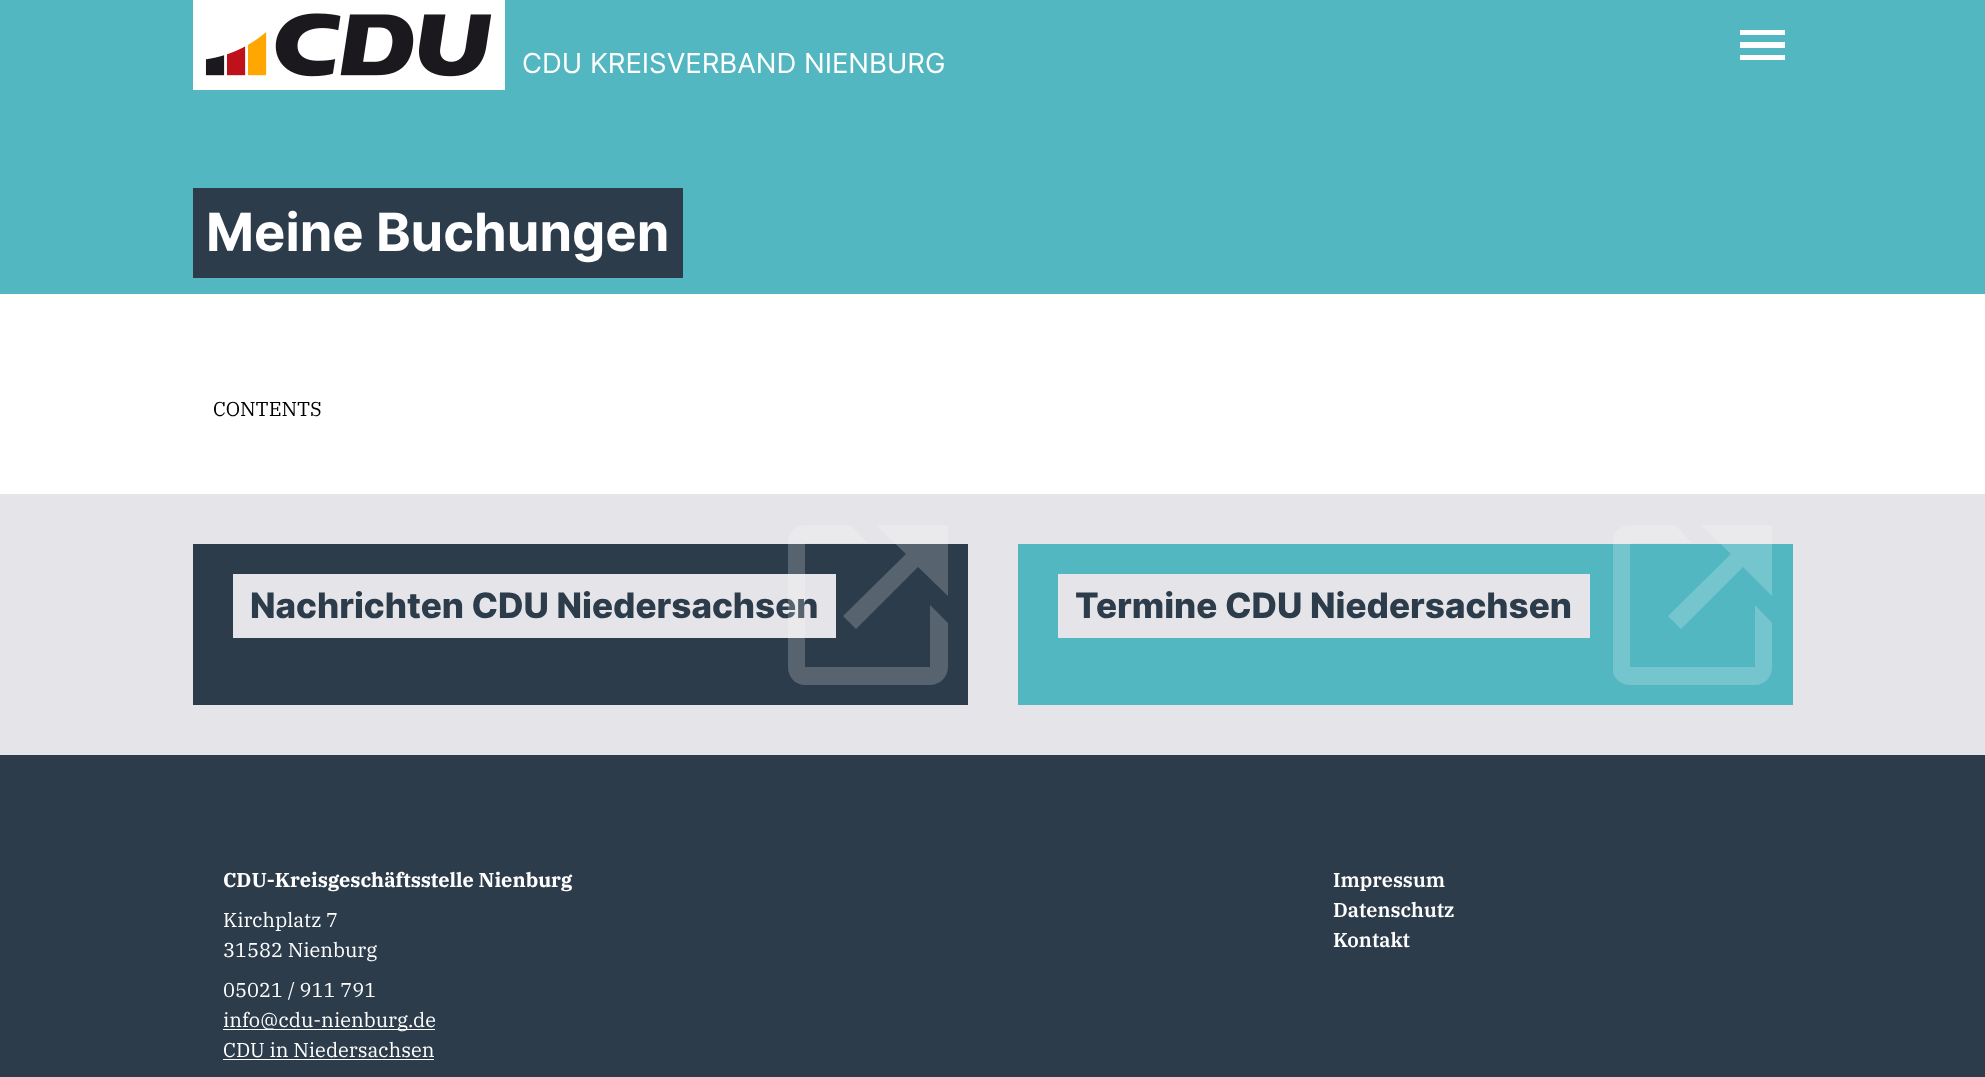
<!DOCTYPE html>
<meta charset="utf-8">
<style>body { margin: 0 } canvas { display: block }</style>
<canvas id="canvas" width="1985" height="1077"></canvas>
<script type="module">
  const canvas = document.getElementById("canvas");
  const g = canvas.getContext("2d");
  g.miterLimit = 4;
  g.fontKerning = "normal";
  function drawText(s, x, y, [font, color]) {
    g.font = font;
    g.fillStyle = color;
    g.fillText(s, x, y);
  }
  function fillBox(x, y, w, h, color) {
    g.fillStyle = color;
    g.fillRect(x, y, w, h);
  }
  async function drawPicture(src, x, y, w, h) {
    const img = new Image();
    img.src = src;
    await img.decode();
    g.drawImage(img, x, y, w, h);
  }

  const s1 = ["27.5px Inter", "#FFFFFF"];
  const s2 = ["bold 52.5px Inter", "#FFFFFF"];
  const s3 = ["20px IBM Plex Serif", "#000000"];
  const s4 = ["800 35px Inter", "#2D3C4B"];
  const s5 = ["bold 20px IBM Plex Serif", "#FFFFFF"];
  const s6 = ["20px IBM Plex Serif", "#FFFFFF"];
  const s7 = ["600 20px IBM Plex Serif", "#FFFFFF"];

  fillBox(0, 0, 1985, 1077, "#FFFFFF");
  fillBox(0, 0, 1985, 294, "#52B7C1");
  g.fillStyle = "#FFFFFF";
  g.beginPath();
  g.moveTo(1785, 60);
  g.lineTo(1740, 60);
  g.lineTo(1740, 55);
  g.lineTo(1785, 55);
  g.closePath();
  g.moveTo(1785, 48);
  g.lineTo(1740, 48);
  g.lineTo(1740, 42);
  g.lineTo(1785, 42);
  g.closePath();
  g.moveTo(1785, 35);
  g.lineTo(1740, 35);
  g.lineTo(1740, 30);
  g.lineTo(1785, 30);
  g.closePath();
  g.fill();
  await drawPicture("pic1.png", 193, 0, 312, 90);
  drawText("CDU KREISVERBAND NIENBURG", 522, 73, s1);
  fillBox(193, 188, 490, 90, "#2D3C4B");
  drawText("Meine Buchungen", 206, 251, s2);
  drawText("CONTENTS", 213, 416, s3);
  fillBox(0, 494, 1985, 261, "#E5E5E9");
  fillBox(193, 544, 775, 161, "#2D3C4B");
  fillBox(233, 574, 603, 64, "#E5E5E9");
  drawText("Nachrichten CDU Niedersachsen", 250, 618, s4);
  g.fillStyle = "rgba(255, 255, 255, 0.2)";
  g.beginPath();
  g.moveTo(876, 525);
  g.lineTo(906, 554);
  g.lineTo(843, 616);
  g.lineTo(856, 629);
  g.lineTo(918, 567);
  g.lineTo(948, 596);
  g.lineTo(948, 525);
  g.closePath();
  g.fill();
  g.beginPath();
  g.moveTo(930, 667);
  g.lineTo(805, 667);
  g.lineTo(805, 543);
  g.lineTo(868, 543);
  g.lineTo(850, 525);
  g.lineTo(805, 525);
  g.bezierCurveTo(795, 525, 788, 533, 788, 543);
  g.lineTo(788, 667);
  g.bezierCurveTo(788, 677, 795, 685, 805, 685);
  g.lineTo(930, 685);
  g.bezierCurveTo(940, 685, 948, 677, 948, 667);
  g.lineTo(948, 623);
  g.lineTo(930, 605);
  g.closePath();
  g.fill();
  fillBox(1018, 544, 775, 161, "#52B7C1");
  fillBox(1058, 574, 532, 64, "#E5E5E9");
  drawText("Termine CDU Niedersachsen", 1075, 618, s4);
  g.fillStyle = "rgba(255, 255, 255, 0.2)";
  g.beginPath();
  g.moveTo(1701, 525);
  g.lineTo(1731, 554);
  g.lineTo(1668, 616);
  g.lineTo(1681, 629);
  g.lineTo(1743, 567);
  g.lineTo(1772, 596);
  g.lineTo(1772, 525);
  g.closePath();
  g.fill();
  g.save();
  g.beginPath();
  g.rect(1613, 525, 160, 160);
  g.clip();
  g.beginPath();
  g.moveTo(1755, 667);
  g.lineTo(1630, 667);
  g.lineTo(1630, 543);
  g.lineTo(1692, 543);
  g.lineTo(1675, 525);
  g.lineTo(1630, 525);
  g.bezierCurveTo(1620, 525, 1612, 533, 1612, 543);
  g.lineTo(1612, 667);
  g.bezierCurveTo(1612, 677, 1620, 685, 1630, 685);
  g.lineTo(1755, 685);
  g.bezierCurveTo(1765, 685, 1772, 677, 1772, 667);
  g.lineTo(1772, 623);
  g.lineTo(1755, 605);
  g.closePath();
  g.fill();
  g.restore();
  fillBox(0, 755, 1985, 322, "#2D3C4B");
  drawText("CDU-Kreisgeschäftsstelle Nienburg", 223, 887, s5);
  drawText("Kirchplatz 7", 223, 927, s6);
  drawText("31582 Nienburg", 223, 957, s6);
  drawText("05021 / 911 791", 223, 997, s6);
  fillBox(223, 1029, 212, 1, "#FFFFFF");
  drawText("info@cdu-nienburg.de", 223, 1027, s6);
  drawText("CDU in Niedersachsen", 223, 1057, s6);
  fillBox(223, 1059, 211, 1, "#FFFFFF");
  drawText("Impressum", 1333, 887, s7);
  drawText("Datenschutz", 1333, 917, s7);
  drawText("Kontakt", 1333, 947, s7);
</script>
